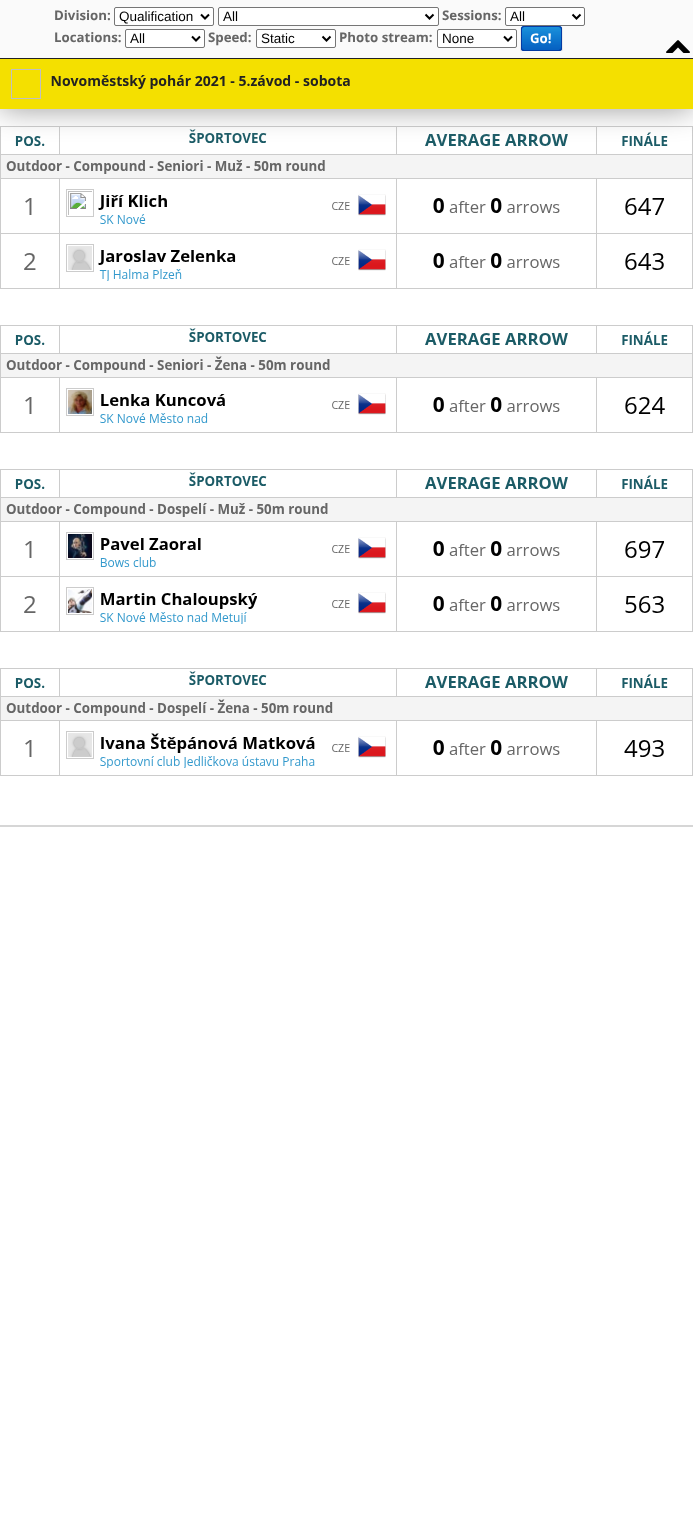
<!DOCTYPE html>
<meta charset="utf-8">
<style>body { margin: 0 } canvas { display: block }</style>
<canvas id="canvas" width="693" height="1534"></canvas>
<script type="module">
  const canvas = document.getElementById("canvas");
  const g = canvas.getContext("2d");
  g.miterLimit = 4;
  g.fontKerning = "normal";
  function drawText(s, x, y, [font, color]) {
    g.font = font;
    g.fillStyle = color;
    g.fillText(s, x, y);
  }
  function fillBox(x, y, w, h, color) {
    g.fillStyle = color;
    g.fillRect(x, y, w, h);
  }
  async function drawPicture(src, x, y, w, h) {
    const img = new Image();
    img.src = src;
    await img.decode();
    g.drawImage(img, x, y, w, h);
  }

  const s1 = ["bold 13.25px Open Sans", "#666666"];
  const s2 = ["13.5px Liberation Sans", "#000000"];
  const s3 = ["bold 13.25px Open Sans", "#FFFFFF"];

  fillBox(0, 0, 693, 1534, "#FFFFFF");
  fillBox(0, 0, 693, 58, "#FAFAFA");
  fillBox(0, 58, 693, 1, "#222222");
  drawText("Division:", 54, 20, s1);
  g.fillStyle = "#FFFFFF";
  g.beginPath();
  g.roundRect(114.5, 7.5, 99, 18, 1.5);
  g.fill();
  g.strokeStyle = "#767676";
  g.stroke();
  g.beginPath();
  g.moveTo(201, 14.5);
  g.lineTo(205, 18.5);
  g.lineTo(209, 14.5);
  g.strokeStyle = "#000000";
  g.lineWidth = 2;
  g.stroke();
  drawText("Qualification", 119, 21, s2);
  g.fillStyle = "#FFFFFF";
  g.beginPath();
  g.roundRect(218.5, 7.5, 220, 18, 1.5);
  g.fill();
  g.strokeStyle = "#767676";
  g.lineWidth = 1;
  g.stroke();
  g.beginPath();
  g.moveTo(425.5, 14.5);
  g.lineTo(429.5, 18.5);
  g.lineTo(433.5, 14.5);
  g.strokeStyle = "#000000";
  g.lineWidth = 2;
  g.stroke();
  drawText("All", 223, 21, s2);
  drawText("Sessions:", 442, 20, s1);
  g.fillStyle = "#FFFFFF";
  g.beginPath();
  g.roundRect(505.5, 7.5, 79, 18, 1.5);
  g.fill();
  g.strokeStyle = "#767676";
  g.lineWidth = 1;
  g.stroke();
  g.beginPath();
  g.moveTo(572.5, 14.5);
  g.lineTo(576.5, 18.5);
  g.lineTo(580.5, 14.5);
  g.strokeStyle = "#000000";
  g.lineWidth = 2;
  g.stroke();
  drawText("All", 510, 21, s2);
  drawText("Locations:", 54, 42, s1);
  g.fillStyle = "#FFFFFF";
  g.beginPath();
  g.roundRect(125.5, 29.5, 79, 18, 1.5);
  g.fill();
  g.strokeStyle = "#767676";
  g.lineWidth = 1;
  g.stroke();
  g.beginPath();
  g.moveTo(192, 36.5);
  g.lineTo(196, 40.5);
  g.lineTo(200, 36.5);
  g.strokeStyle = "#000000";
  g.lineWidth = 2;
  g.stroke();
  drawText("All", 130, 43, s2);
  drawText("Speed:", 208, 42, s1);
  g.fillStyle = "#FFFFFF";
  g.beginPath();
  g.roundRect(256.5, 29.5, 79, 18, 1.5);
  g.fill();
  g.strokeStyle = "#767676";
  g.lineWidth = 1;
  g.stroke();
  g.beginPath();
  g.moveTo(322.5, 36.5);
  g.lineTo(326.5, 40.5);
  g.lineTo(330.5, 36.5);
  g.strokeStyle = "#000000";
  g.lineWidth = 2;
  g.stroke();
  drawText("Static", 261, 43, s2);
  drawText("Photo stream:", 339, 42, s1);
  g.fillStyle = "#FFFFFF";
  g.beginPath();
  g.roundRect(437.5, 29.5, 79, 18, 1.5);
  g.fill();
  g.strokeStyle = "#767676";
  g.lineWidth = 1;
  g.stroke();
  g.beginPath();
  g.moveTo(504, 36.5);
  g.lineTo(508, 40.5);
  g.lineTo(512, 36.5);
  g.strokeStyle = "#000000";
  g.lineWidth = 2;
  g.stroke();
  drawText("None", 442, 43, s2);
  await drawPicture("pic1.png", 520, 26, 5, 25);
  await drawPicture("pic2.png", 525, 26, 32, 25);
  drawText("Go!", 530, 43, s3);
  await drawPicture("pic3.png", 557, 26, 6, 25);
  await drawPicture("pic4.png", 666, 40, 24, 13);
  await drawPicture("pic5.png", 0, 59, 693, 768);
</script>
